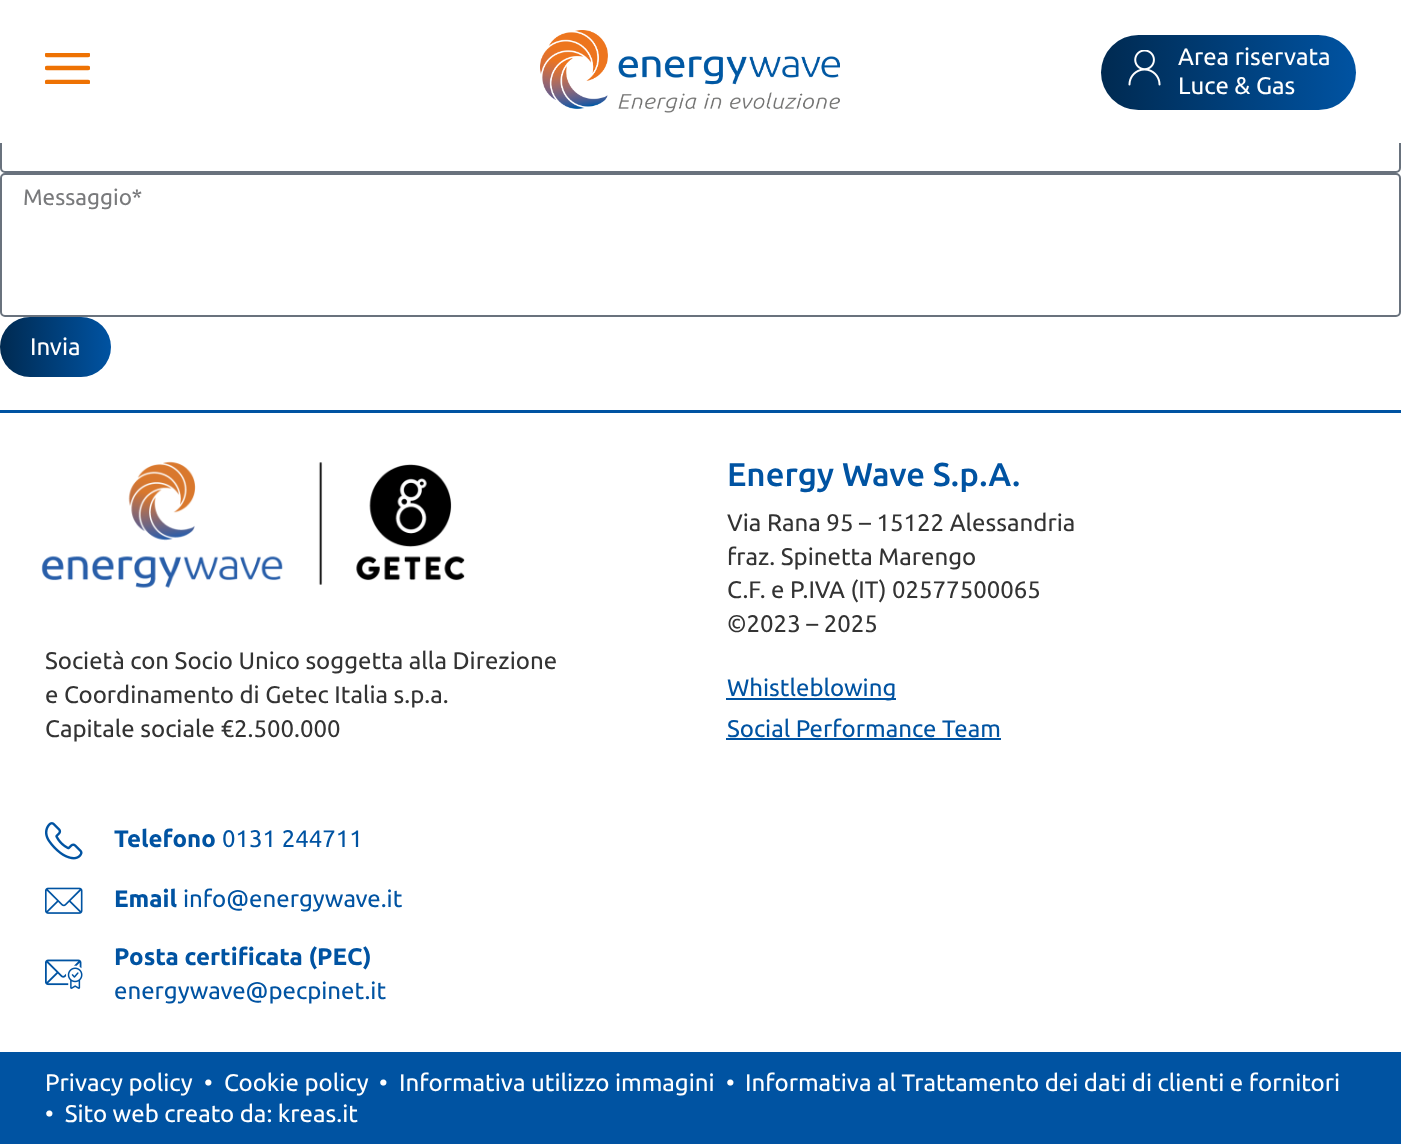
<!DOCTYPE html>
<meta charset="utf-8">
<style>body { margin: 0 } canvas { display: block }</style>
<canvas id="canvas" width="1401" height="1144"></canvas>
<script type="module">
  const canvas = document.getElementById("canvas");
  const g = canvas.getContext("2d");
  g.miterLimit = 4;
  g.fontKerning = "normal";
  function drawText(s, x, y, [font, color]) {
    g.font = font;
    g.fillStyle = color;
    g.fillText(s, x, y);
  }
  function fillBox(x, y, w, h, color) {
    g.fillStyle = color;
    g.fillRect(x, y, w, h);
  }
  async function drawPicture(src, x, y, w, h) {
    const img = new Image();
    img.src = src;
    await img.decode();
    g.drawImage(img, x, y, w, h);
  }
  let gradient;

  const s1 = ["24px Ubuntu", "#FFFFFF"];
  const s2 = ["22.5px Ubuntu", "#797A7C"];
  const s3 = ["24px Ubuntu", "#333333"];
  const s4 = ["500 33px Ubuntu", "#0053A2"];
  const s5 = ["24px Ubuntu", "#0053A2"];
  const s6 = ["bold 24px Ubuntu", "#0053A2"];

  fillBox(0, 0, 1401, 1144, "#FFFFFF");
  g.beginPath();
  g.roundRect(1, 114, 1399, 58, 4);
  g.strokeStyle = "#69727D";
  g.lineWidth = 2;
  g.stroke();
  fillBox(0, 113, 1401, 30, "#FFFFFF");
  g.save();
  g.beginPath();
  g.rect(45, 53, 45, 31);
  g.clip();
  g.beginPath();
  g.moveTo(47, 68);
  g.lineTo(88, 68);
  g.moveTo(47, 55);
  g.lineTo(88, 55);
  g.moveTo(47, 82);
  g.lineTo(88, 82);
  g.strokeStyle = "#EE7203";
  g.lineWidth = 4.5;
  g.lineCap = "round";
  g.lineJoin = "round";
  g.stroke();
  g.restore();
  await drawPicture("pic1.png", 540, 30, 300, 83);
  gradient = g.createLinearGradient(1101, 72, 1356, 72);
  gradient.addColorStop(0, "#002A51");
  gradient.addColorStop(1, "#0053A2");
  g.fillStyle = gradient;
  g.beginPath();
  g.roundRect(1101, 35, 255, 75, 37.5);
  g.fill();
  await drawPicture("pic2.png", 1128, 50, 33, 36);
  drawText("Area riservata", 1178, 65, s1);
  drawText("Luce & Gas", 1178, 94, s1);
  g.beginPath();
  g.roundRect(1, 174, 1399, 142, 4);
  g.stroke();
  drawText("Messaggio*", 23, 205, s2);
  gradient = g.createLinearGradient(0, 347, 111, 347);
  gradient.addColorStop(0, "#002A51");
  gradient.addColorStop(1, "#0053A2");
  g.fillStyle = gradient;
  g.beginPath();
  g.roundRect(0, 317, 111, 60, 30);
  g.fill();
  drawText("Invia", 30, 355, s1);
  fillBox(0, 410, 1401, 3, "#0053A2");
  await drawPicture("pic3.png", 41, 461, 424, 127);
  drawText("Società con Socio Unico soggetta alla Direzione", 45, 669, s3);
  drawText("e Coordinamento di Getec Italia s.p.a.", 45, 703, s3);
  drawText("Capitale sociale €2.500.000", 45, 737, s3);
  drawText("Energy Wave S.p.A.", 727, 486, s4);
  drawText("Via Rana 95 – 15122 Alessandria", 727, 531, s3);
  drawText("fraz. Spinetta Marengo", 727, 565, s3);
  drawText("C.F. e P.IVA (IT) 02577500065", 727, 598, s3);
  drawText("©2023 – 2025", 727, 632, s3);
  fillBox(726, 698, 170, 2, "#0053A2");
  drawText("Whistleblowing", 727, 696, s5);
  drawText("Social Performance Team", 727, 737, s5);
  fillBox(726, 738, 275, 2, "#0053A2");
  await drawPicture("pic4.png", 45, 822, 38, 38);
  drawText("Telefono", 114, 847, s6);
  drawText("0131 244711", 222, 847, s5);
  await drawPicture("pic5.png", 45, 887, 38, 27);
  drawText("Email", 114, 907, s6);
  drawText("info@energywave.it", 183, 907, s5);
  await drawPicture("pic6.png", 45, 959, 38, 30);
  drawText("Posta certificata (PEC)", 114, 965, s6);
  drawText("energywave@pecpinet.it", 114, 999, s5);
  fillBox(0, 1052, 1401, 92, "#0053A2");
  drawText("Privacy policy", 45, 1091, s1);
  drawText("•", 204, 1091, s1);
  drawText("Cookie policy", 224, 1091, s1);
  drawText("•", 379, 1091, s1);
  drawText("Informativa utilizzo immagini", 399, 1091, s1);
  drawText("•", 726, 1091, s1);
  drawText("Informativa al Trattamento dei dati di clienti e fornitori", 745, 1091, s1);
  drawText("•  Sito web creato da: kreas.it", 45, 1122, s1);
</script>
